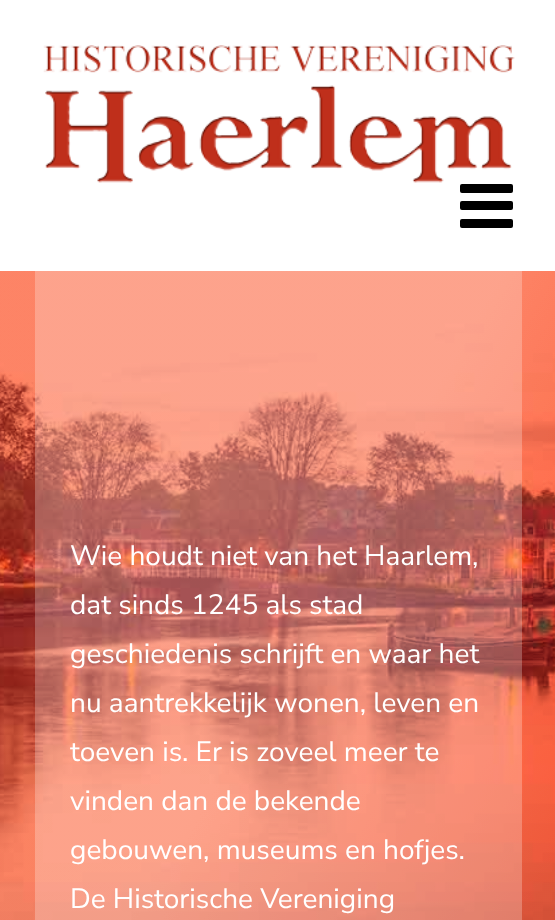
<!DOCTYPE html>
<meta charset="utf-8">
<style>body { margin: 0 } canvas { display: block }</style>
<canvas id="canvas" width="555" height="920"></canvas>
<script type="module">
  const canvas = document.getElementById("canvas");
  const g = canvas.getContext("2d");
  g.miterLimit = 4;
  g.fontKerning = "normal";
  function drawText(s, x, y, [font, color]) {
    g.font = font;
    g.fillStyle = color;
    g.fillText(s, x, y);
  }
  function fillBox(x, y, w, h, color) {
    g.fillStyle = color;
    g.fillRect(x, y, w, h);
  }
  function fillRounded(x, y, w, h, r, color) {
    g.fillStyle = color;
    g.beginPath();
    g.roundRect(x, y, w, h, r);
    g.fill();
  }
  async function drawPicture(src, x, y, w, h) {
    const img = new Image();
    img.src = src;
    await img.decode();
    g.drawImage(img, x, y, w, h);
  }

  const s1 = ["28px Nunito Sans", "#FFFFFF"];

  fillBox(0, 0, 555, 920, "#FFFFFF");
  await drawPicture("pic1.png", 43, 45, 472, 138);
  fillRounded(460, 184, 53, 9, 2, "#000000");
  fillRounded(460, 201, 53, 9, 2, "#000000");
  fillRounded(460, 219, 53, 9, 2, "#000000");
  await drawPicture("pic2.png", 0, 271, 555, 649);
  fillBox(35, 271, 487, 649, "rgba(255, 255, 255, 0.25)");
  drawText("Wie houdt niet van het Haarlem,", 70, 565, s1);
  drawText("dat sinds 1245 als stad", 70, 614, s1);
  drawText("geschiedenis schrijft en waar het", 70, 663, s1);
  drawText("nu aantrekkelijk wonen, leven en", 70, 712, s1);
  drawText("toeven is. Er is zoveel meer te", 70, 761, s1);
  drawText("vinden dan de bekende", 70, 810, s1);
  drawText("gebouwen, museums en hofjes.", 70, 859, s1);
  drawText("De Historische Vereniging", 70, 908, s1);
</script>
